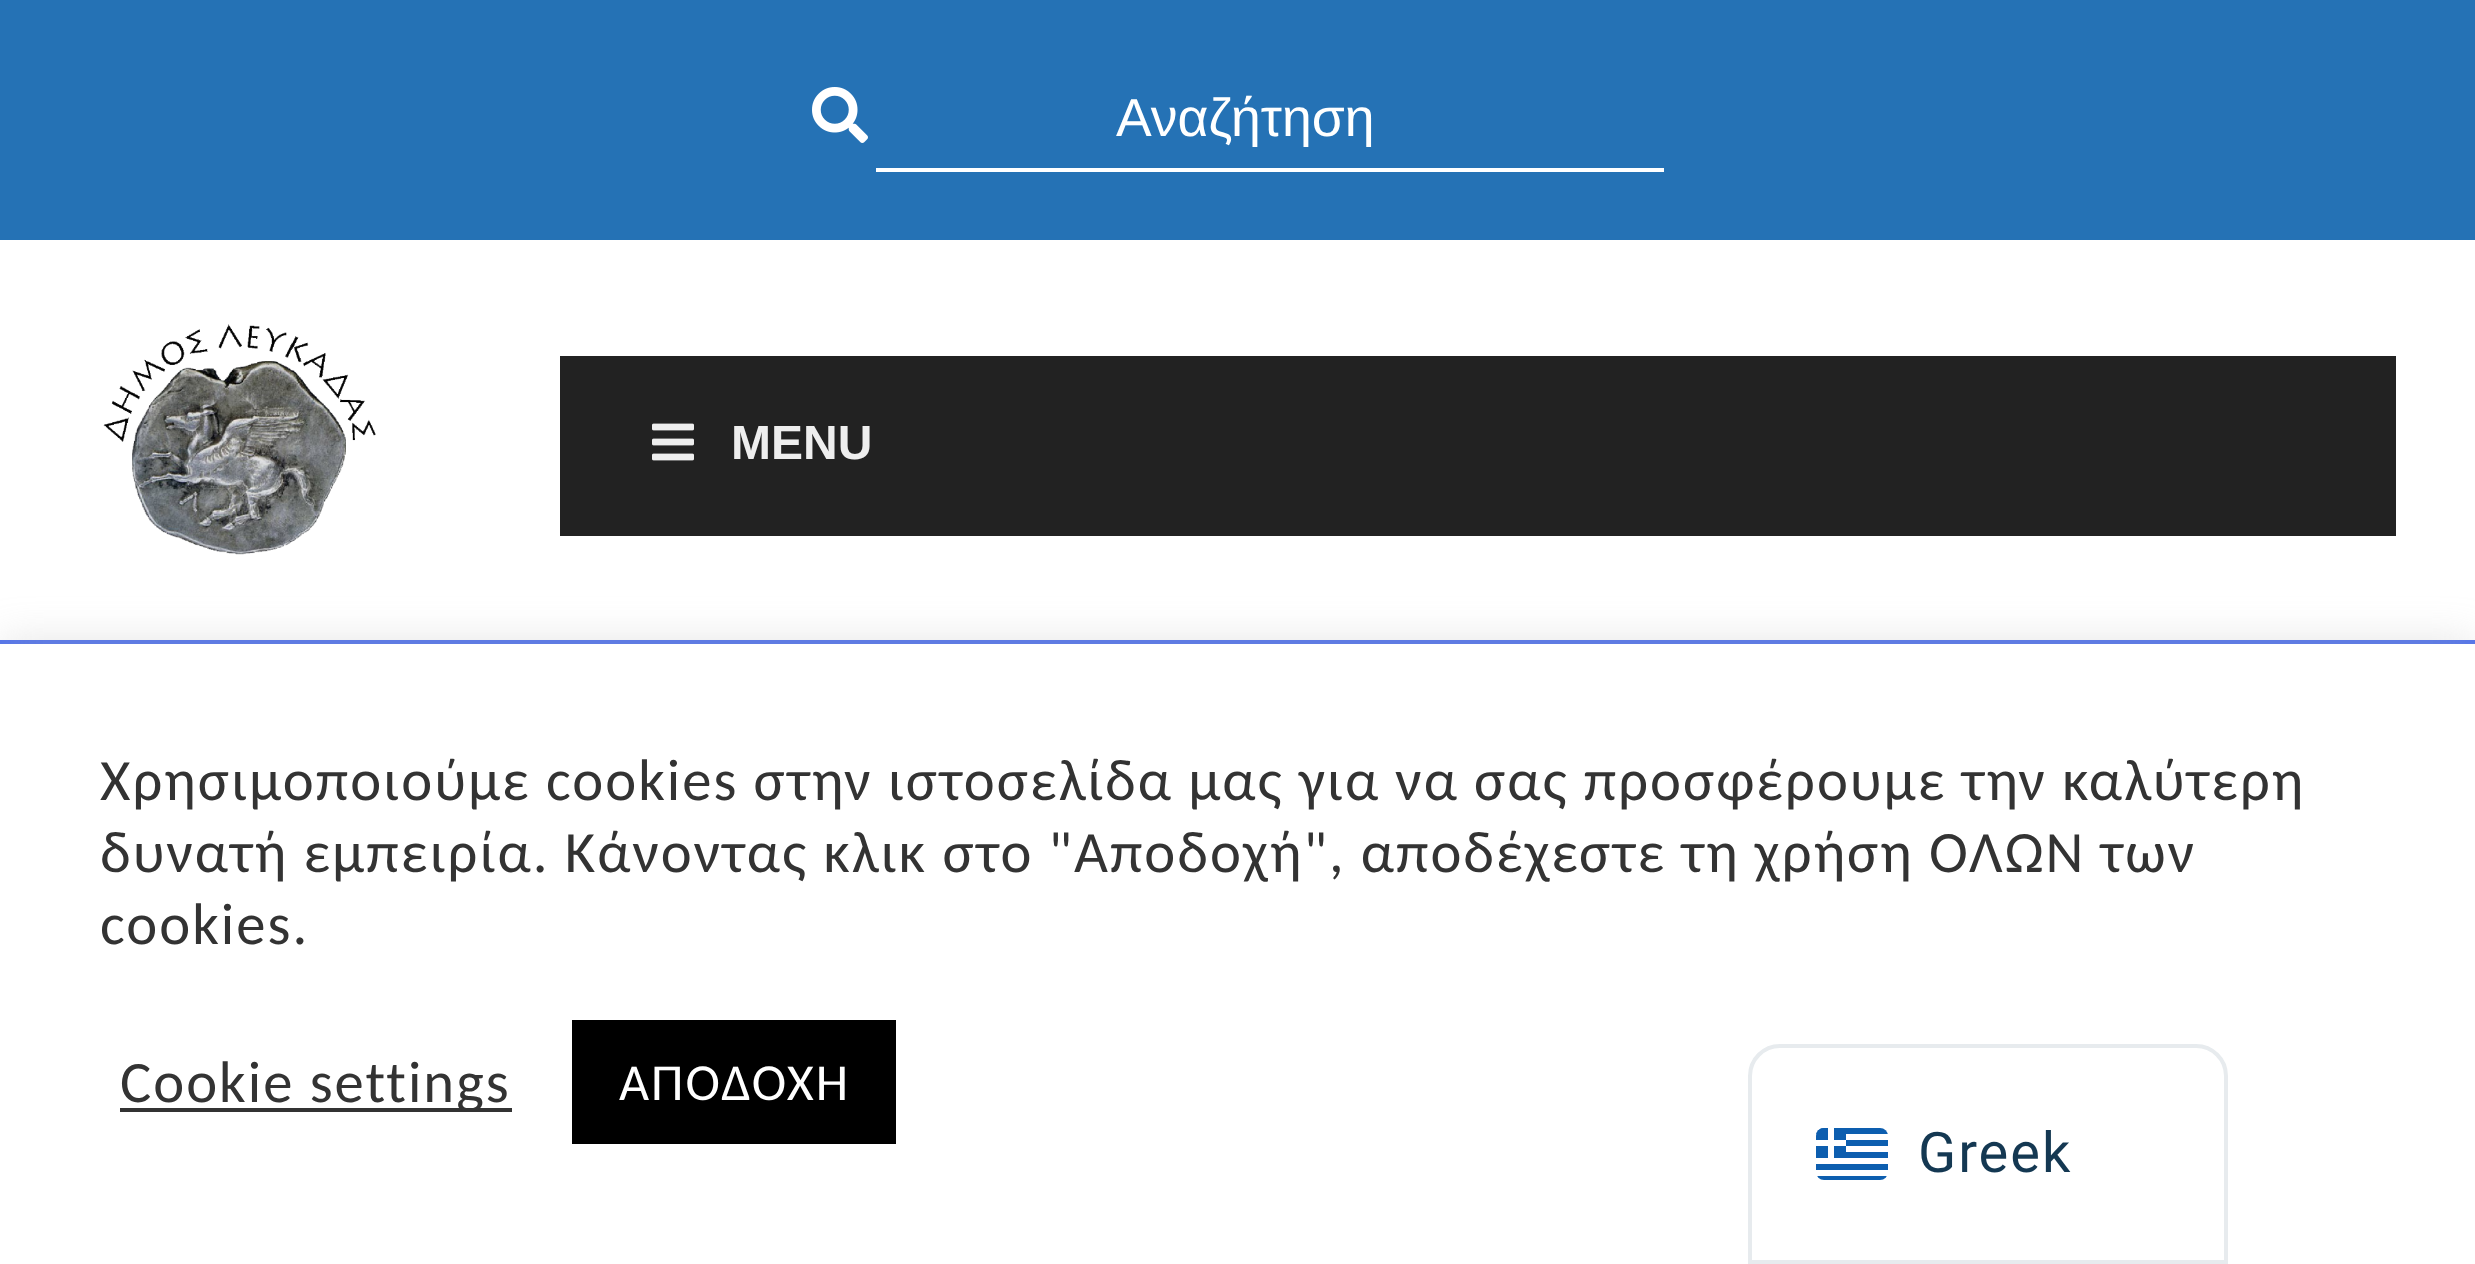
<!DOCTYPE html>
<meta charset="utf-8">
<style>body { margin: 0 } canvas { display: block }</style>
<canvas id="canvas" width="2475" height="1264"></canvas>
<script type="module">
  const canvas = document.getElementById("canvas");
  const g = canvas.getContext("2d");
  g.miterLimit = 4;
  g.fontKerning = "normal";
  function drawText(s, x, y, [font, color]) {
    g.font = font;
    g.fillStyle = color;
    g.fillText(s, x, y);
  }
  function fillBox(x, y, w, h, color) {
    g.fillStyle = color;
    g.fillRect(x, y, w, h);
  }
  async function drawPicture(src, x, y, w, h) {
    const img = new Image();
    img.src = src;
    await img.decode();
    g.drawImage(img, x, y, w, h);
  }

  const s1 = ["53.5px Liberation Sans", "#FFFFFF"];
  const s2 = ["bold 48px Liberation Sans", "#EEEEEE"];
  const s3 = ["58.65px Carlito", "#333333"];
  const s4 = ["52px Carlito", "#FFFFFF"];
  const s5 = ["56px Roboto", "#143852"];

  fillBox(0, 0, 2475, 1264, "#FFFFFF");
  fillBox(0, 0, 2475, 240, "#2572B5");
  await drawPicture("pic1.png", 812, 87, 56, 56);
  fillBox(876, 168, 788, 4, "#FFFFFF");
  drawText("Αναζήτηση", 1116, 136, s1);
  fillBox(0, 640, 2475, 4, "#5072ED");
  await drawPicture("pic2.png", 103, 324, 273, 231);
  fillBox(560, 356, 1836, 180, "#222222");
  await drawPicture("pic3.png", 652, 423, 42, 38);
  drawText("MENU", 731, 459, s2);
  g.fillStyle = "rgba(172, 171, 171, 0.3)";
  g.filter = "blur(20px)";
  g.beginPath();
  g.rect(0, 640, 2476, 620);
  g.fill();
  g.filter = "none";
  fillBox(0, 644, 2475, 620, "#FFFFFF");
  g.letterSpacing = "2px";
  g.wordSpacing = "-0.1px";
  drawText("Χρησιμοποιούμε cookies στην ιστοσελίδα μας για να σας προσφέρουμε την καλύτερη", 100, 800, s3);
  drawText("δυνατή εμπειρία. Κάνοντας κλικ στο \"Αποδοχή\", αποδέχεστε τη χρήση ΟΛΩΝ των", 100, 872, s3);
  g.wordSpacing = "0px";
  drawText("cookies.", 100, 944, s3);
  fillBox(120, 1108, 392, 4, "#333333");
  drawText("Cookie settings", 120, 1102, s3);
  fillBox(572, 1020, 324, 124, "#000000");
  drawText("ΑΠΟΔΟΧΗ", 619, 1100, s4);
  g.beginPath();
  g.roundRect(1750, 1046, 476, 216, [30, 30, 0, 0]);
  g.strokeStyle = "#E7EBEE";
  g.lineWidth = 4;
  g.stroke();
  g.save();
  g.beginPath();
  g.roundRect(1816, 1128, 72, 52, 8);
  g.clip();
  fillBox(1816, 1128, 72, 6, "#0D5EAF");
  g.restore();
  fillBox(1846, 1140, 42, 6, "#0D5EAF");
  g.beginPath();
  g.roundRect(1816, 1128, 30, 30, [8, 0, 0, 0]);
  g.fill();
  fillBox(1846, 1152, 42, 6, "#0D5EAF");
  fillBox(1816, 1164, 72, 6, "#0D5EAF");
  fillBox(1828, 1128, 6, 30, "#FFFFFF");
  fillBox(1816, 1140, 30, 6, "#FFFFFF");
  g.save();
  g.beginPath();
  g.roundRect(1816, 1128, 72, 52, 8);
  g.clip();
  fillBox(1816, 1176, 72, 4, "#0D5EAF");
  g.restore();
  drawText("Greek", 1918, 1172, s5);
</script>
